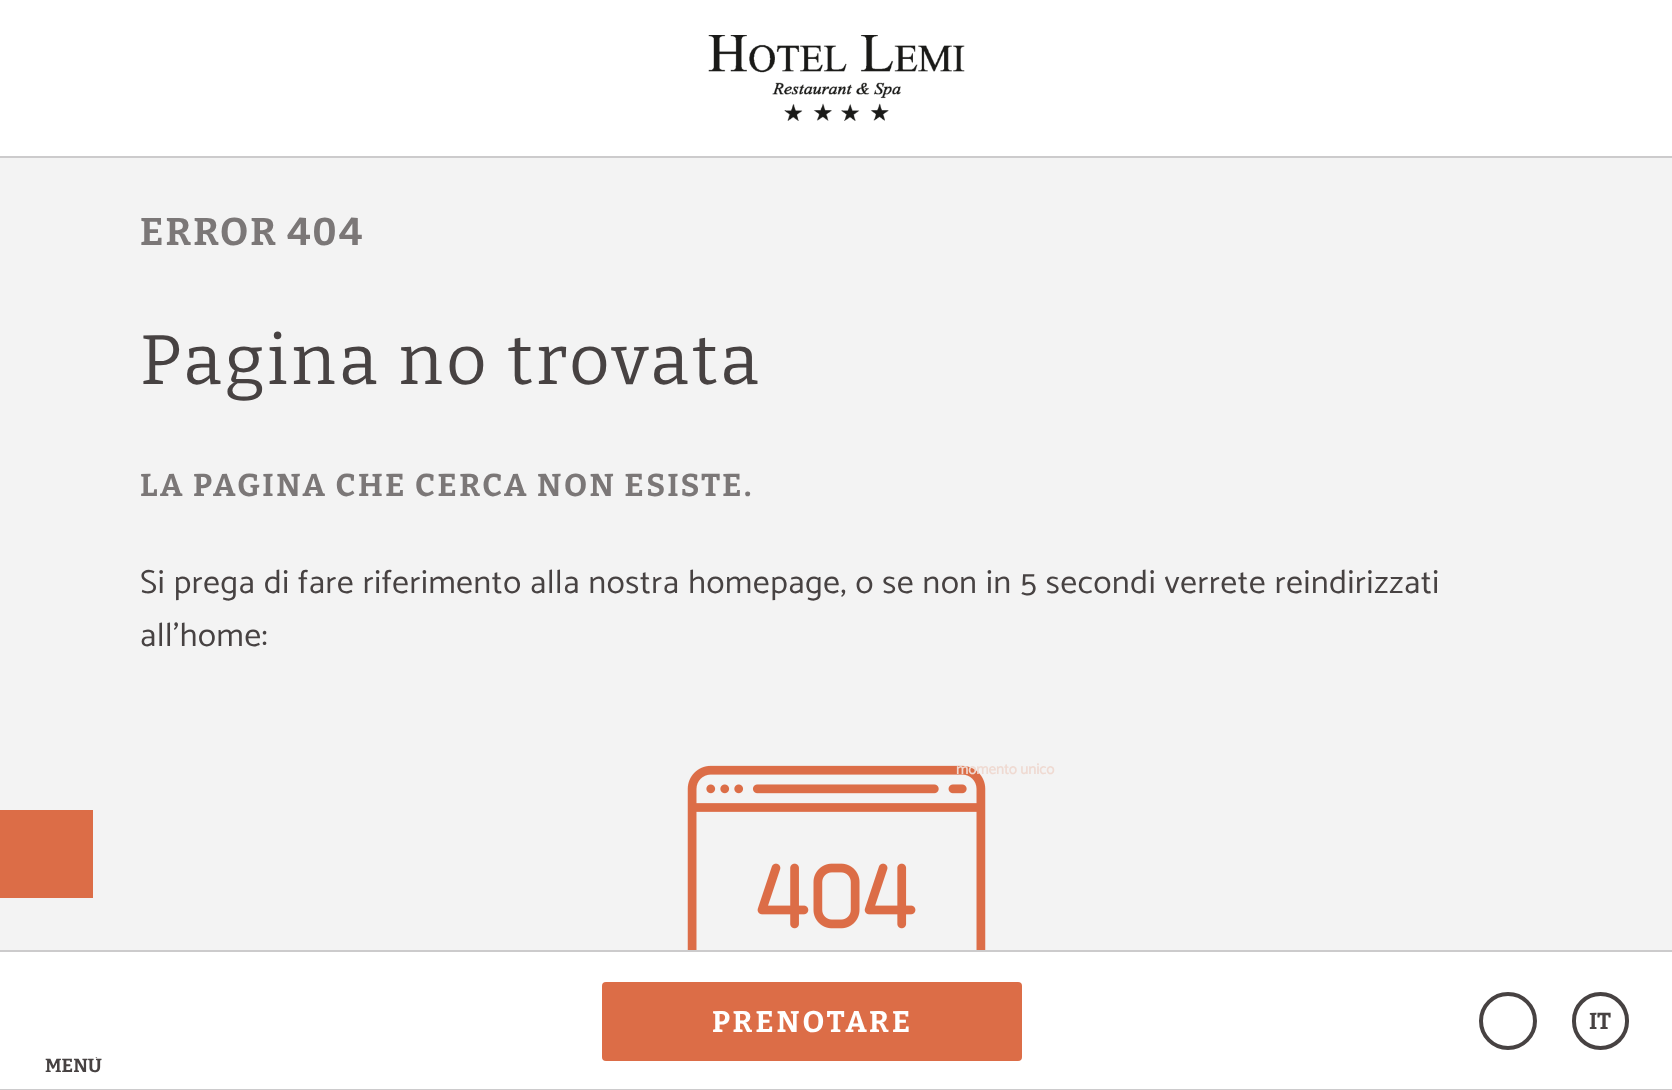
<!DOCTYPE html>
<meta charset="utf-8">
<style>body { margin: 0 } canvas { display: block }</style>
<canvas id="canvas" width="1672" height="1090"></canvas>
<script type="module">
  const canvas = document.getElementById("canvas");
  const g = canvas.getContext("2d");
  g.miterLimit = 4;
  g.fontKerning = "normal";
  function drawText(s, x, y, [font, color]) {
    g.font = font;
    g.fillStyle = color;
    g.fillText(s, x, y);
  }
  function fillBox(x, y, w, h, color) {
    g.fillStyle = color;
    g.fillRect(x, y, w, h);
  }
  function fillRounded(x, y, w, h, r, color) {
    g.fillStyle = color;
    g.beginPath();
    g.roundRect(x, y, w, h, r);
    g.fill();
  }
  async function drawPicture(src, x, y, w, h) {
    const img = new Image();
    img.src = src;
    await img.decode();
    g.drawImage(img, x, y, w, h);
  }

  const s1 = ["bold 38.5px Bitter", "#7B7777"];
  const s2 = ["70px Bitter", "#474242"];
  const s3 = ["bold 31.5px Bitter", "#7B7777"];
  const s4 = ["100 33.25px Catamaran", "#474242"];
  const s5 = ["bold 15px Catamaran", "#EFDAD2"];
  const s6 = ["bold 29.75px Bitter", "#FFFFFF"];
  const s7 = ["bold 23px Bitter", "#474242"];
  const s8 = ["bold 19px Bitter", "#474242"];

  fillBox(0, 0, 1672, 1090, "#F3F3F3");
  fillBox(0, 0, 1672, 156, "#FFFFFF");
  fillBox(0, 156, 1672, 2, "#CCCBCC");
  await drawPicture("pic1.png", 708, 35, 257, 86);
  g.letterSpacing = "2px";
  drawText("ERROR 404", 140, 245, s1);
  g.letterSpacing = "3.5px";
  drawText("Pagina no trovata", 140, 384, s2);
  g.letterSpacing = "2.5px";
  drawText("LA PAGINA CHE CERCA NON ESISTE.", 140, 496, s3);
  g.letterSpacing = "0.67px";
  drawText("Si prega di fare riferimento alla nostra homepage, o se non in 5 secondi verrete reindirizzati", 140, 593, s4);
  drawText("all'home:", 140, 646, s4);
  await drawPicture("pic2.png", 687, 765, 299, 185);
  g.letterSpacing = "0px";
  drawText("momento unico", 956, 774, s5);
  fillBox(0, 810, 93, 88, "#DC6D47");
  fillBox(0, 952, 1672, 137, "#FFFFFF");
  fillBox(0, 950, 1672, 2, "#CCCBCC");
  fillBox(0, 1089, 1672, 1, "#CCCBCC");
  fillRounded(602, 982, 420, 79, 4, "#DC6D47");
  g.letterSpacing = "3px";
  drawText("PRENOTARE", 712, 1032, s6);
  g.beginPath();
  g.arc(1508, 1021, 27, 0, Math.PI * 2);
  g.strokeStyle = "#474242";
  g.lineWidth = 4;
  g.stroke();
  g.beginPath();
  g.roundRect(1574, 994, 53, 54, 26.5);
  g.stroke();
  g.letterSpacing = "0px";
  drawText("IT", 1589, 1029, s7);
  g.save();
  g.beginPath();
  g.rect(26, 1057, 95, 19);
  g.clip();
  drawText("MENÙ", 45, 1072, s8);
  g.restore();
</script>
